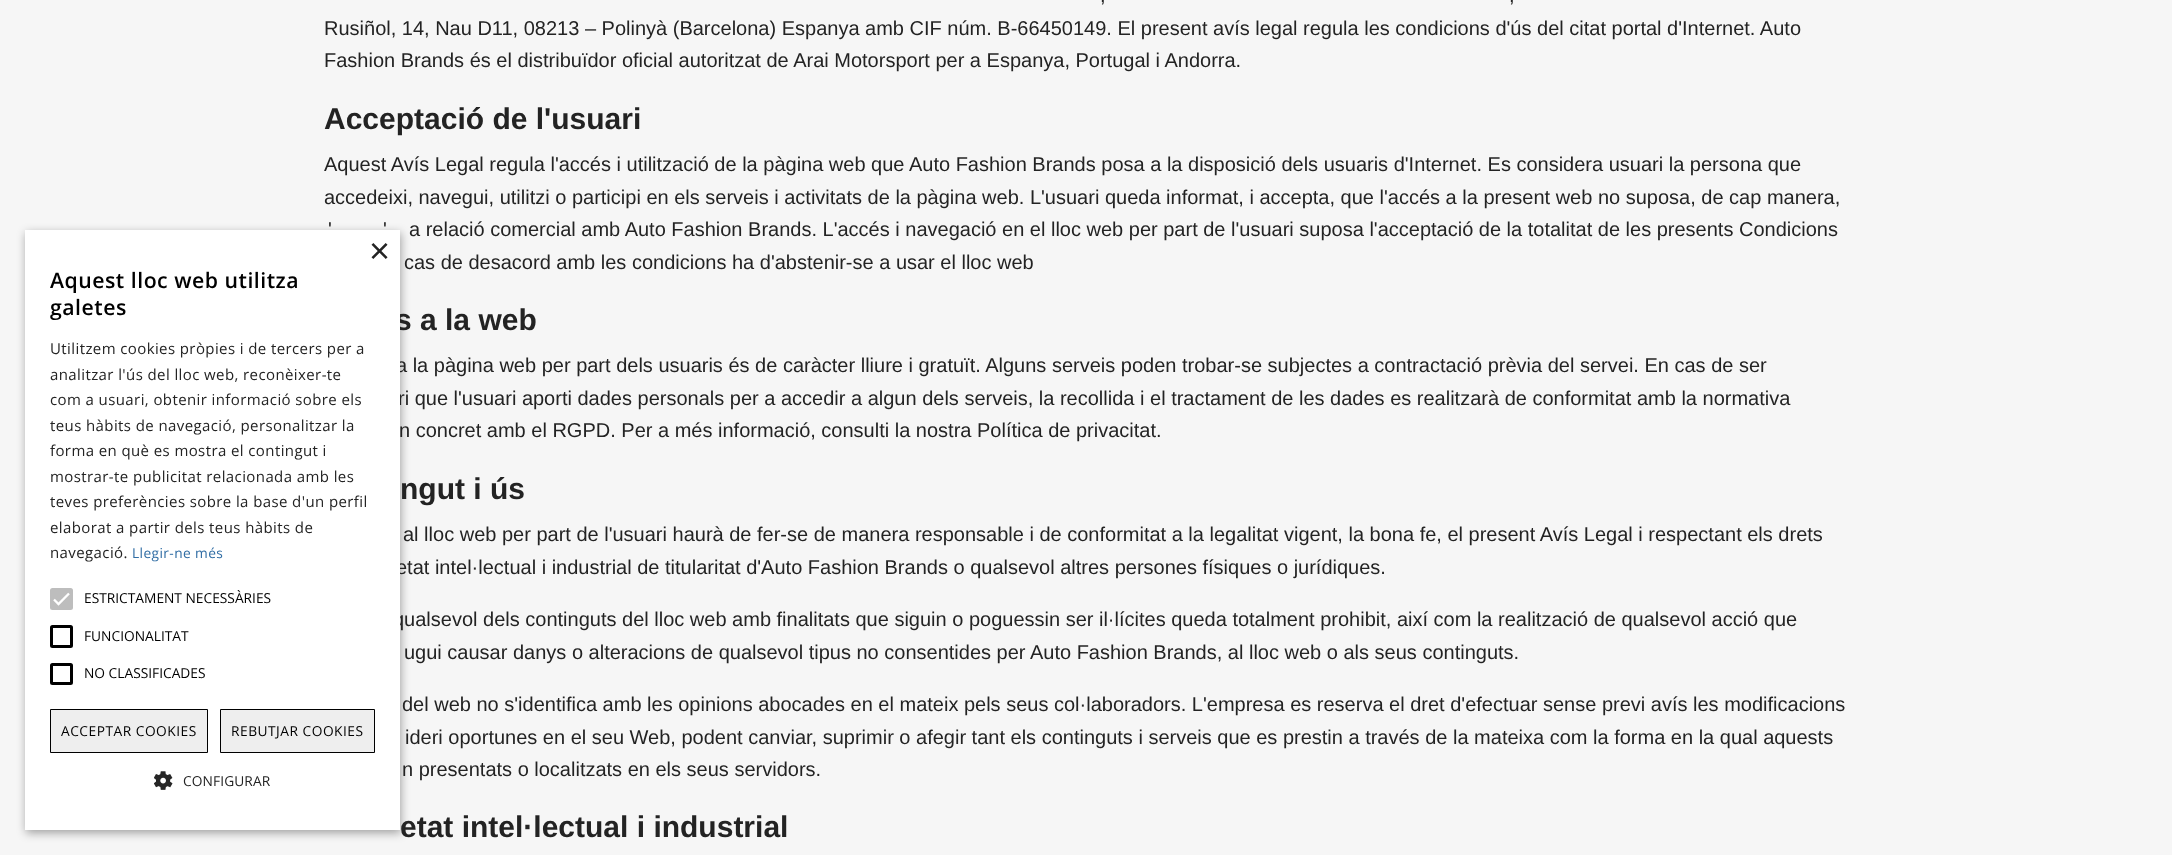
<!DOCTYPE html>
<meta charset="utf-8">
<style>body { margin: 0 } canvas { display: block }</style>
<canvas id="canvas" width="2172" height="855"></canvas>
<script type="module">
  const canvas = document.getElementById("canvas");
  const g = canvas.getContext("2d");
  g.miterLimit = 4;
  g.fontKerning = "normal";
  function drawText(s, x, y, [font, color]) {
    g.font = font;
    g.fillStyle = color;
    g.fillText(s, x, y);
  }
  function fillBox(x, y, w, h, color) {
    g.fillStyle = color;
    g.fillRect(x, y, w, h);
  }
  function fillRounded(x, y, w, h, r, color) {
    g.fillStyle = color;
    g.beginPath();
    g.roundRect(x, y, w, h, r);
    g.fill();
  }
  async function drawPicture(src, x, y, w, h) {
    const img = new Image();
    img.src = src;
    await img.decode();
    g.drawImage(img, x, y, w, h);
  }

  const s1 = ["bold 30px Liberation Sans", "#232323"];
  const s2 = ["20px Liberation Sans", "#232323"];
  const s3 = ["36px Liberation Sans", "#232323"];
  const s4 = ["600 21.25px Open Sans", "#000000"];
  const s5 = ["15px Open Sans", "#232323"];
  const s6 = ["13.75px Open Sans", "#306DA4"];
  const s7 = ["13.75px Open Sans", "#000000"];
  const s8 = ["13.75px Open Sans", "#232323"];

  fillBox(0, 0, 2172, 855, "#F6F6F6");
  g.fillStyle = "rgba(0, 0, 0, 0.35)";
  g.filter = "blur(5px)";
  g.beginPath();
  g.rect(26, 233, 375, 600);
  g.fill();
  g.filter = "none";
  drawText("s a la web", 395, 330, s1);
  drawText("a la pàgina web per part dels usuaris és de caràcter lliure i gratuït. Alguns serveis poden trobar-se subjectes a contractació prèvia del servei. En cas de ser", 396, 372, s2);
  drawText("ri que l'usuari aporti dades personals per a accedir a algun dels serveis, la recollida i el tractament de les dades es realitzarà de conformitat amb la normativa", 398, 405, s2);
  drawText("etat intel·lectual i industrial de titularitat d'Auto Fashion Brands o qualsevol altres persones físiques o jurídiques.", 396, 574, s2);
  drawText("qualsevol dels continguts del lloc web amb finalitats que siguin o poguessin ser il·lícites queda totalment prohibit, així com la realització de qualsevol acció que", 393, 626, s2);
  fillBox(25, 230, 375, 600, "#FFFFFF");
  drawText("×", 369, 263, s3);
  g.letterSpacing = "0.5px";
  drawText("Aquest lloc web utilitza", 50, 288, s4);
  drawText("galetes", 50, 315, s4);
  g.letterSpacing = "0.4px";
  drawText("Utilitzem cookies pròpies i de tercers per a", 50, 354, s5);
  drawText("analitzar l'ús del lloc web, reconèixer-te", 50, 380, s5);
  drawText("com a usuari, obtenir informació sobre els", 50, 405, s5);
  drawText("teus hàbits de navegació, personalitzar la", 50, 431, s5);
  drawText("forma en què es mostra el contingut i", 50, 456, s5);
  drawText("mostrar-te publicitat relacionada amb les", 50, 482, s5);
  drawText("teves preferències sobre la base d'un perfil", 50, 507, s5);
  drawText("elaborat a partir dels teus hàbits de", 50, 533, s5);
  drawText("navegació.", 50, 558, s5);
  drawText("Llegir-ne més", 132, 558, s6);
  fillRounded(50, 588, 23, 22, 2.5, "#BDBDBD");
  g.beginPath();
  g.moveTo(54, 599.5);
  g.lineTo(58.5, 604);
  g.lineTo(69, 593.5);
  g.strokeStyle = "#FFFFFF";
  g.lineWidth = 2.3;
  g.stroke();
  g.letterSpacing = "0px";
  drawText("ESTRICTAMENT NECESSÀRIES", 84, 603, s7);
  g.beginPath();
  g.roundRect(51.5, 626.5, 20, 20, 1);
  g.strokeStyle = "#000000";
  g.lineWidth = 3;
  g.stroke();
  drawText("FUNCIONALITAT", 84, 641, s7);
  g.beginPath();
  g.roundRect(51.5, 664.5, 20, 19, 1);
  g.stroke();
  drawText("NO CLASSIFICADES", 84, 678, s7);
  g.fillStyle = "#EEEEEE";
  g.beginPath();
  g.rect(50.5, 709.5, 157, 43);
  g.fill();
  g.lineWidth = 1;
  g.stroke();
  g.letterSpacing = "0.5px";
  drawText("ACCEPTAR COOKIES", 61, 736, s7);
  g.fillStyle = "#EEEEEE";
  g.beginPath();
  g.rect(220.5, 709.5, 154, 43);
  g.fill();
  g.stroke();
  drawText("REBUTJAR COOKIES", 231, 736, s7);
  await drawPicture("pic1.png", 154, 771, 19, 19);
  g.letterSpacing = "0.1px";
  drawText("CONFIGURAR", 183, 786, s8);
  g.letterSpacing = "0px";
  drawText(",", 1100, 2, s2);
  drawText(",", 1509, 2, s2);
  drawText("Rusiñol, 14, Nau D11, 08213 – Polinyà (Barcelona) Espanya amb CIF núm. B-66450149. El present avís legal regula les condicions d'ús del citat portal d'Internet. Auto", 324, 35, s2);
  drawText("Fashion Brands és el distribuïdor oficial autoritzat de Arai Motorsport per a Espanya, Portugal i Andorra.", 324, 67, s2);
  drawText("Acceptació de l'usuari", 324, 129, s1);
  drawText("Aquest Avís Legal regula l'accés i utilització de la pàgina web que Auto Fashion Brands posa a la disposició dels usuaris d'Internet. Es considera usuari la persona que", 324, 171, s2);
  drawText("accedeixi, navegui, utilitzi o participi en els serveis i activitats de la pàgina web. L'usuari queda informat, i accepta, que l'accés a la present web no suposa, de cap manera,", 324, 204, s2);
  drawText("'", 328, 236, s2);
  drawText("'", 383, 236, s2);
  drawText("a relació comercial amb Auto Fashion Brands. L'accés i navegació en el lloc web per part de l'usuari suposa l'acceptació de la totalitat de les presents Condicions", 409, 236, s2);
  drawText("cas de desacord amb les condicions ha d'abstenir-se a usar el lloc web", 404, 269, s2);
  drawText("n concret amb el RGPD. Per a més informació, consulti la nostra Política de privacitat.", 399, 437, s2);
  drawText("ngut i ús", 400, 499, s1);
  drawText("al lloc web per part de l'usuari haurà de fer-se de manera responsable i de conformitat a la legalitat vigent, la bona fe, el present Avís Legal i respectant els drets", 403, 541, s2);
  drawText("ugui causar danys o alteracions de qualsevol tipus no consentides per Auto Fashion Brands, al lloc web o als seus continguts.", 404, 659, s2);
  drawText("del web no s'identifica amb les opinions abocades en el mateix pels seus col·laboradors. L'empresa es reserva el dret d'efectuar sense previ avís les modificacions", 402, 711, s2);
  drawText("ideri oportunes en el seu Web, podent canviar, suprimir o afegir tant els continguts i serveis que es prestin a través de la mateixa com la forma en la qual aquests", 405, 744, s2);
  drawText("n presentats o localitzats en els seus servidors.", 402, 776, s2);
  drawText("etat intel·lectual i industrial", 400, 837, s1);
</script>
